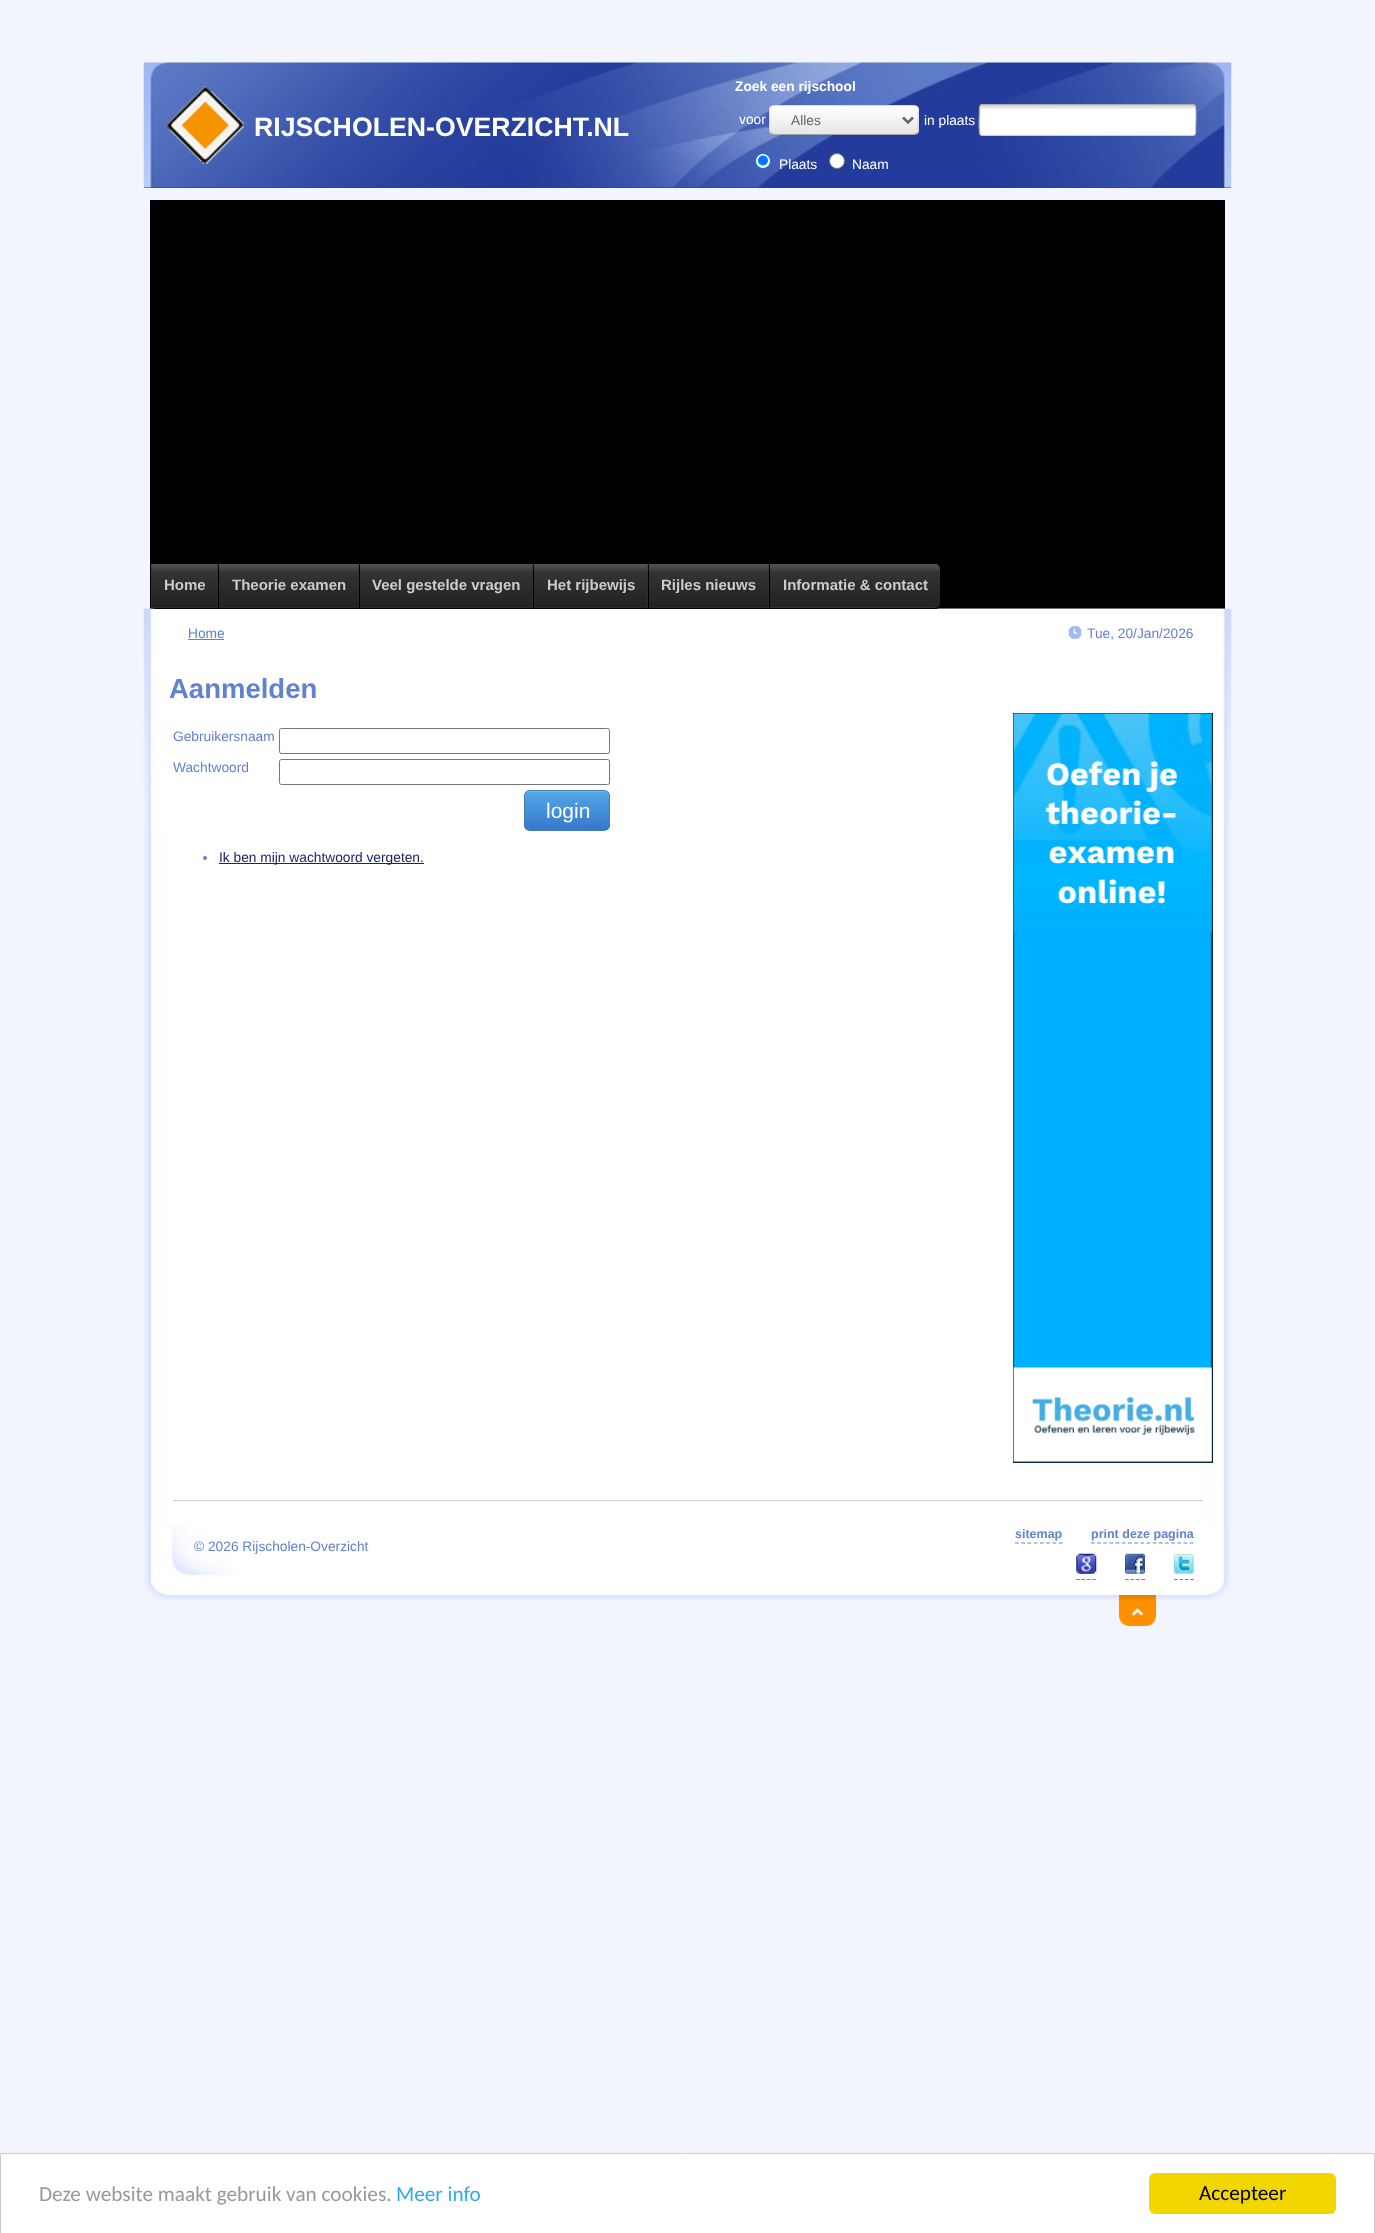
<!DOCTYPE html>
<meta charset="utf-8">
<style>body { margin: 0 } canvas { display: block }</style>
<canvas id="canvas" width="1375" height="2233"></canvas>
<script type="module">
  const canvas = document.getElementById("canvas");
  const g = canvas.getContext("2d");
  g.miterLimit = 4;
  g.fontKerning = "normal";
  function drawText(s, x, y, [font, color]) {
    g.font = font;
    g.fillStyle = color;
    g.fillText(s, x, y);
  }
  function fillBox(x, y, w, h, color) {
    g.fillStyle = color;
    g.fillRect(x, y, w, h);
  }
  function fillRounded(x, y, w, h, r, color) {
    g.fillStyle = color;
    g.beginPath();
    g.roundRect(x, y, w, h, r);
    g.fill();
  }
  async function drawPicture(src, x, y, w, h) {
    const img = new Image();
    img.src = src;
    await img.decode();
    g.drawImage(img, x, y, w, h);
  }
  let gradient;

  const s1 = ["bold 26.7px Liberation Sans", "#FFFFFF"];
  const s2 = ["bold 13.75px Liberation Sans", "#FFFFFF"];
  const s3 = ["13.75px Liberation Sans", "#FFFFFF"];
  const s4 = ["13.75px Liberation Sans", "#666666"];
  const s5 = ["bold 15px Liberation Sans", "#CCCCCC"];
  const s6 = ["13.75px Liberation Sans", "#6182D1"];
  const s7 = ["bold 27.5px Liberation Sans", "#6182D1"];
  const s8 = ["21px Liberation Sans", "#FFFFFF"];
  const s9 = ["13.75px Liberation Sans", "#192666"];
  const s10 = ["bold 12.5px Liberation Sans", "#6182D1"];
  const s11 = ["21.25px Carlito", "#999999"];
  const s12 = ["21.25px Carlito", "#31A8F0"];
  const s13 = ["21.25px Carlito", "#000000"];

  fillBox(0, 0, 1375, 2233, "#F2F5FE");
  fillBox(144, 187, 1087, 1, "#233C9B");
  await drawPicture("pic1.png", 143, 62, 1089, 126);
  await drawPicture("pic2.png", 166, 86, 78, 78);
  drawText("RIJSCHOLEN-OVERZICHT.NL", 254, 136, s1);
  drawText("Zoek een rijschool", 735, 91, s2);
  drawText("voor", 739, 124, s3);
  g.fillStyle = "rgba(0, 0, 0, 0.05)";
  g.filter = "blur(1px)";
  g.beginPath();
  g.roundRect(769, 106, 150, 30, 5);
  g.fill();
  g.filter = "none";
  fillRounded(769, 105, 150, 30, 5, "#F5F5F5");
  g.save();
  g.beginPath();
  g.roundRect(769, 105, 150, 30, 5);
  g.clip();
  gradient = g.createLinearGradient(844, 106, 844, 134);
  gradient.addColorStop(0, "#FFFFFF");
  gradient.addColorStop(1, "#E6E6E6");
  g.fillStyle = gradient;
  g.fillRect(769, 106, 150, 28);
  g.restore();
  g.beginPath();
  g.moveTo(917, 133);
  g.lineTo(914, 134.5);
  g.lineTo(773.5, 134.5);
  g.lineTo(770.5, 133);
  g.strokeStyle = "#A2A2A2";
  g.lineWidth = 1.2;
  g.stroke();
  g.beginPath();
  g.moveTo(770.5, 133);
  g.bezierCurveTo(768, 130.5, 769.5, 123, 769.5, 120);
  g.bezierCurveTo(769.5, 116.5, 767, 105.5, 774, 105.5);
  g.lineTo(914, 105.5);
  g.bezierCurveTo(920.5, 105.5, 918, 116.5, 918, 120);
  g.bezierCurveTo(918, 123, 919.5, 130.5, 917, 133);
  g.strokeStyle = "rgba(0, 0, 0, 0.1)";
  g.stroke();
  g.beginPath();
  g.moveTo(903, 117.5);
  g.lineTo(908, 122.5);
  g.lineTo(913, 117.5);
  g.strokeStyle = "#666666";
  g.lineWidth = 2.5;
  g.stroke();
  drawText("Alles", 791, 125, s4);
  drawText("in plaats", 924, 125, s3);
  fillRounded(979, 104, 217, 32, 4, "#FFFFFF");
  gradient = g.createLinearGradient(1088, 105, 1088, 135);
  gradient.addColorStop(0, "rgba(0, 0, 0, 0.18)");
  gradient.addColorStop(0.17, "rgba(0, 0, 0, 0)");
  gradient.addColorStop(1, "rgba(0, 0, 0, 0)");
  g.fillStyle = gradient;
  g.fillRect(979, 105, 217, 4);
  g.beginPath();
  g.moveTo(1194.5, 105.5);
  g.bezierCurveTo(1197, 107.5, 1195.5, 124.5, 1195.5, 128.5);
  g.bezierCurveTo(1195.5, 130.5, 1196.5, 135.5, 1192.5, 135.5);
  g.lineTo(982.5, 135.5);
  g.lineTo(980.5, 134.5);
  g.strokeStyle = "#CCCCCC";
  g.lineWidth = 1.2;
  g.stroke();
  g.beginPath();
  g.moveTo(980.5, 134.5);
  g.bezierCurveTo(978, 132.5, 979.5, 115.5, 979.5, 111.5);
  g.bezierCurveTo(979.5, 109.5, 978.5, 104.5, 982.5, 104.5);
  g.lineTo(1192.5, 104.5);
  g.lineTo(1194.5, 105.5);
  g.strokeStyle = "#AAAAAA";
  g.stroke();
  g.fillStyle = "#FFFFFF";
  g.beginPath();
  g.arc(763, 161, 7.5, 0, Math.PI * 2);
  g.fill();
  g.strokeStyle = "#0075FF";
  g.lineWidth = 1;
  g.stroke();
  g.fillStyle = "#0075FF";
  g.beginPath();
  g.arc(763, 160.5, 5, 0, Math.PI * 2);
  g.fill();
  drawText("Plaats", 779, 169, s3);
  g.beginPath();
  g.arc(837, 161, 7.5, 0, Math.PI * 2);
  g.fill();
  g.strokeStyle = "#767676";
  g.stroke();
  drawText("Naam", 852, 169, s3);
  fillBox(150, 200, 1075, 409, "#000000");
  await drawPicture("pic9.png", 144, 608, 1087, 874);
  await drawPicture("pic10.png", 143, 608, 1089, 220);
  fillRounded(150, 563, 791, 46, 5, "#000000");
  fillBox(151, 564, 67, 44, "#333333");
  await drawPicture("pic3.png", 151, 564, 67, 44);
  drawText("Home", 164, 590, s5);
  fillBox(219, 564, 140, 44, "#333333");
  await drawPicture("pic4.png", 218, 564, 141, 44);
  drawText("Theorie examen", 232, 590, s5);
  fillBox(360, 564, 173, 44, "#333333");
  await drawPicture("pic5.png", 360, 564, 173, 44);
  drawText("Veel gestelde vragen", 372, 590, s5);
  fillBox(534, 564, 114, 44, "#333333");
  await drawPicture("pic6.png", 533, 564, 115, 44);
  drawText("Het rijbewijs", 547, 590, s5);
  fillBox(649, 564, 120, 44, "#333333");
  await drawPicture("pic7.png", 648, 564, 121, 44);
  drawText("Rijles nieuws", 661, 590, s5);
  g.fillStyle = "#333333";
  g.beginPath();
  g.roundRect(770, 564, 170, 44, [0, 5, 5, 0]);
  g.fill();
  await drawPicture("pic8.png", 770, 564, 170, 43);
  drawText("Informatie & contact", 783, 590, s5);
  drawText("Home", 188, 638, s6);
  fillBox(188, 639, 36, 1, "#6182D1");
  await drawPicture("pic11.png", 1068, 626, 14, 13);
  drawText("Tue, 20/Jan/2026", 1087, 638, s6);
  drawText("Aanmelden", 169, 698, s7);
  drawText("Gebruikersnaam", 173, 741, s6);
  g.beginPath();
  g.roundRect(279.5, 728.5, 330, 25, 2);
  g.stroke();
  drawText("Wachtwoord", 173, 772, s6);
  g.beginPath();
  g.roundRect(279.5, 759.5, 330, 25, 2);
  g.stroke();
  g.save();
  g.beginPath();
  g.roundRect(524, 790, 86, 41, 6);
  g.clip();
  gradient = g.createLinearGradient(567, 791, 567, 830);
  gradient.addColorStop(0, "#53A8E8");
  gradient.addColorStop(1, "#3677CC");
  g.fillStyle = gradient;
  g.fillRect(524, 791, 86, 39);
  g.restore();
  g.fillStyle = "#72B9EB";
  g.beginPath();
  g.moveTo(530, 792);
  g.lineTo(604, 792);
  g.bezierCurveTo(607, 792, 609, 795, 609, 798);
  g.bezierCurveTo(609, 788, 600, 791, 592, 791);
  g.lineTo(542, 791);
  g.bezierCurveTo(534, 791, 525, 788, 525, 798);
  g.bezierCurveTo(525, 795, 527, 792, 530, 792);
  g.closePath();
  g.fill();
  g.beginPath();
  g.roundRect(524.5, 790.5, 85, 40, 5.5);
  g.strokeStyle = "#4081AF";
  g.stroke();
  drawText("login", 546, 818, s8);
  g.fillStyle = "#6182D1";
  g.beginPath();
  g.arc(205, 858, 2, 0, Math.PI * 2);
  g.fill();
  fillBox(219, 863, 205, 1, "#192666");
  drawText("Ik ben mijn wachtwoord vergeten.", 219, 862, s9);
  await drawPicture("pic12.png", 1013, 713, 200, 750);
  await drawPicture("pic13.png", 144, 1481, 1087, 46);
  fillBox(173, 1500, 1030, 1, "#CCCCCC");
  await drawPicture("pic14.png", 144, 1526, 1087, 75);
  drawText("sitemap", 1015, 1538, s10);
  g.beginPath();
  g.moveTo(1015, 1543);
  g.lineTo(1062.5, 1543);
  g.strokeStyle = "#6685CC";
  g.lineWidth = 1.2;
  g.setLineDash([3.75, 2.5]);
  g.stroke();
  drawText("print deze pagina", 1091, 1538, s10);
  g.beginPath();
  g.moveTo(1091, 1543);
  g.lineTo(1194, 1543);
  g.setLineDash([3.75, 2.42]);
  g.stroke();
  await drawPicture("pic15.png", 1076, 1553, 21, 21);
  await drawPicture("pic16.png", 1125, 1553, 20, 21);
  await drawPicture("pic17.png", 1173, 1553, 21, 21);
  g.beginPath();
  g.moveTo(1076, 1579.5);
  g.lineTo(1096, 1579.5);
  g.setLineDash([3.75, 1.66]);
  g.stroke();
  g.beginPath();
  g.moveTo(1125, 1579.5);
  g.lineTo(1145, 1579.5);
  g.stroke();
  g.beginPath();
  g.moveTo(1174, 1579.5);
  g.lineTo(1194, 1579.5);
  g.stroke();
  drawText("© 2026 Rijscholen-Overzicht", 194, 1551, s6);
  await drawPicture("pic18.png", 1118, 1595, 39, 32);
  g.fillStyle = "#FFFFFF";
  g.beginPath();
  g.rect(0.5, 2153.5, 1374, 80);
  g.fill();
  g.strokeStyle = "#CCCCCC";
  g.lineWidth = 1;
  g.setLineDash([]);
  g.stroke();
  drawText("Deze website maakt gebruik van cookies.", 39, 2201, s11);
  drawText("Meer info", 396, 2201, s12);
  fillRounded(1149, 2173, 187, 41, 6, "#F1D600");
  drawText("Accepteer", 1199, 2200, s13);
</script>
